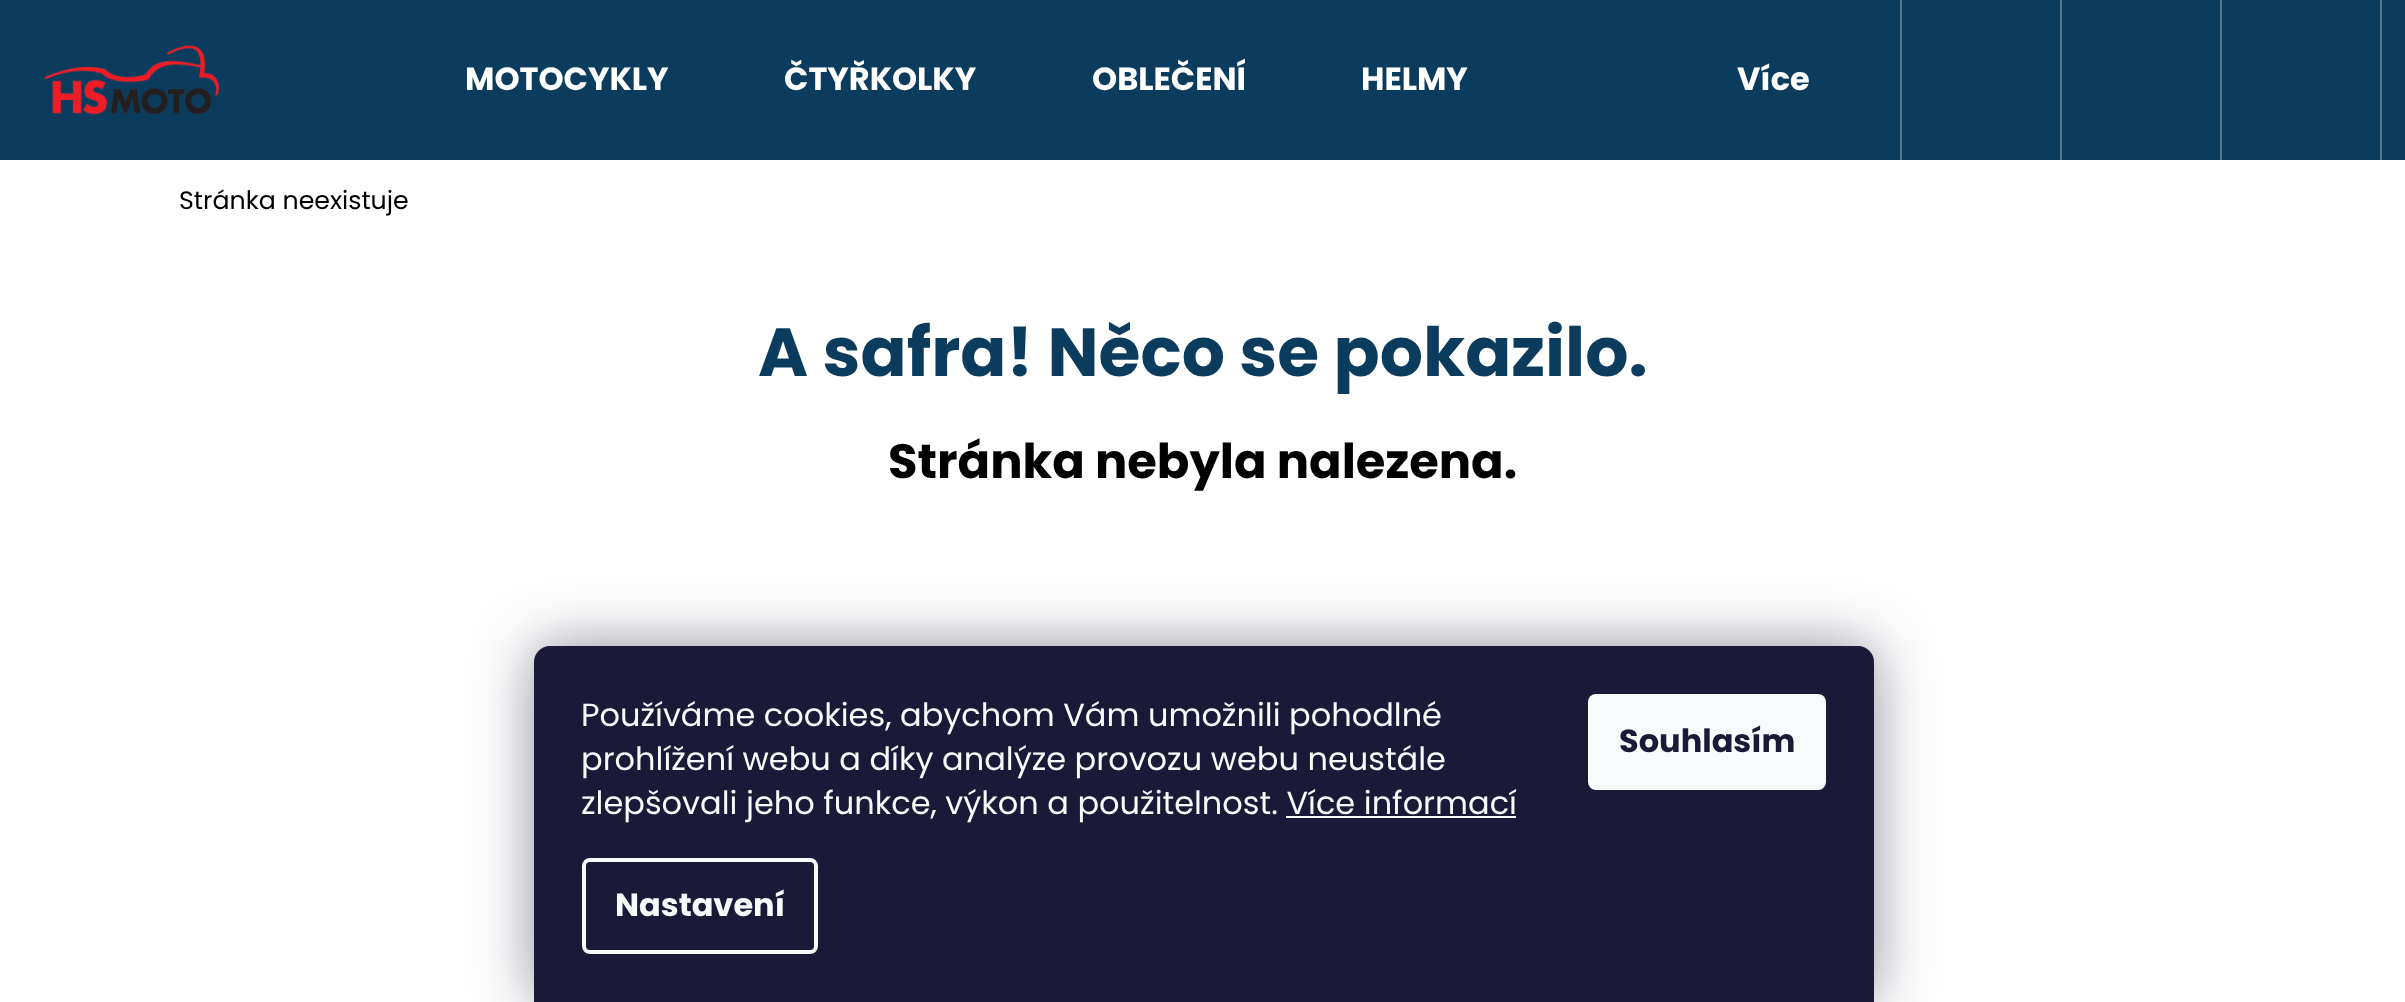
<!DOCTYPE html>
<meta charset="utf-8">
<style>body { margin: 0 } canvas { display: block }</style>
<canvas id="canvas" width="2405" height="1002"></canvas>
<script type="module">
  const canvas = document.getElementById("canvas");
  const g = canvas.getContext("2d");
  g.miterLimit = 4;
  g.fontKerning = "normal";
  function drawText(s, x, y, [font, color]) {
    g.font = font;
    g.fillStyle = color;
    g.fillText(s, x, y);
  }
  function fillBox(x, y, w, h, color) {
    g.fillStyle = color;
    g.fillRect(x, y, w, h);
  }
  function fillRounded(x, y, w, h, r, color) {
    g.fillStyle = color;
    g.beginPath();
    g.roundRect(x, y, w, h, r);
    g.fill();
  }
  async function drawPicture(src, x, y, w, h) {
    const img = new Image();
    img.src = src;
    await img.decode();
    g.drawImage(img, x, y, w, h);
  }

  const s1 = ["bold 32px Poppins", "#FFFFFF"];
  const s2 = ["25.25px Poppins", "#000000"];
  const s3 = ["bold 68px Poppins", "#0B3C5D"];
  const s4 = ["bold 48px Poppins", "#000000"];
  const s5 = ["32px Poppins", "#F8FAFB"];
  const s6 = ["bold 32px Poppins", "#F8FAFB"];
  const s7 = ["bold 32px Poppins", "#1A1937"];

  fillBox(0, 0, 2405, 1002, "#FFFFFF");
  fillBox(0, 0, 2405, 160, "#0B3C5D");
  await drawPicture("pic1.png", 44, 45, 176, 70);
  drawText("MOTOCYKLY", 465, 90, s1);
  drawText("ČTYŘKOLKY", 784, 90, s1);
  drawText("OBLEČENÍ", 1092, 90, s1);
  drawText("HELMY", 1361, 90, s1);
  drawText("Více", 1737, 90, s1);
  fillBox(2380, 0, 2, 160, "#54778E");
  fillBox(1900, 0, 2, 160, "#54778E");
  fillBox(2060, 0, 2, 160, "#54778E");
  fillBox(2220, 0, 2, 160, "#54778E");
  drawText("Stránka neexistuje", 179, 209, s2);
  drawText("A safra! Něco se pokazilo.", 758, 376, s3);
  drawText("Stránka nebyla nalezena.", 888, 478, s4);
  g.fillStyle = "rgba(27, 25, 57, 0.5)";
  g.filter = "blur(30px)";
  g.beginPath();
  g.roundRect(534, 646, 1340, 356, 16);
  g.fill();
  g.filter = "none";
  g.fillStyle = "#1A1937";
  g.beginPath();
  g.roundRect(534, 646, 1340, 356, [16, 16, 0, 0]);
  g.fill();
  drawText("Používáme cookies, abychom Vám umožnili pohodlné", 581, 726, s5);
  drawText("prohlížení webu a díky analýze provozu webu neustále", 581, 770, s5);
  drawText("zlepšovali jeho funkce, výkon a použitelnost. Více informací", 581, 814, s5);
  fillBox(1286, 816, 230, 2, "#F8FAFB");
  g.beginPath();
  g.roundRect(584, 860, 232, 92, 6);
  g.strokeStyle = "#F8FAFB";
  g.lineWidth = 4;
  g.stroke();
  drawText("Nastavení", 615, 916, s6);
  fillRounded(1588, 694, 238, 96, 8, "#F8FAFB");
  drawText("Souhlasím", 1619, 752, s7);
</script>
